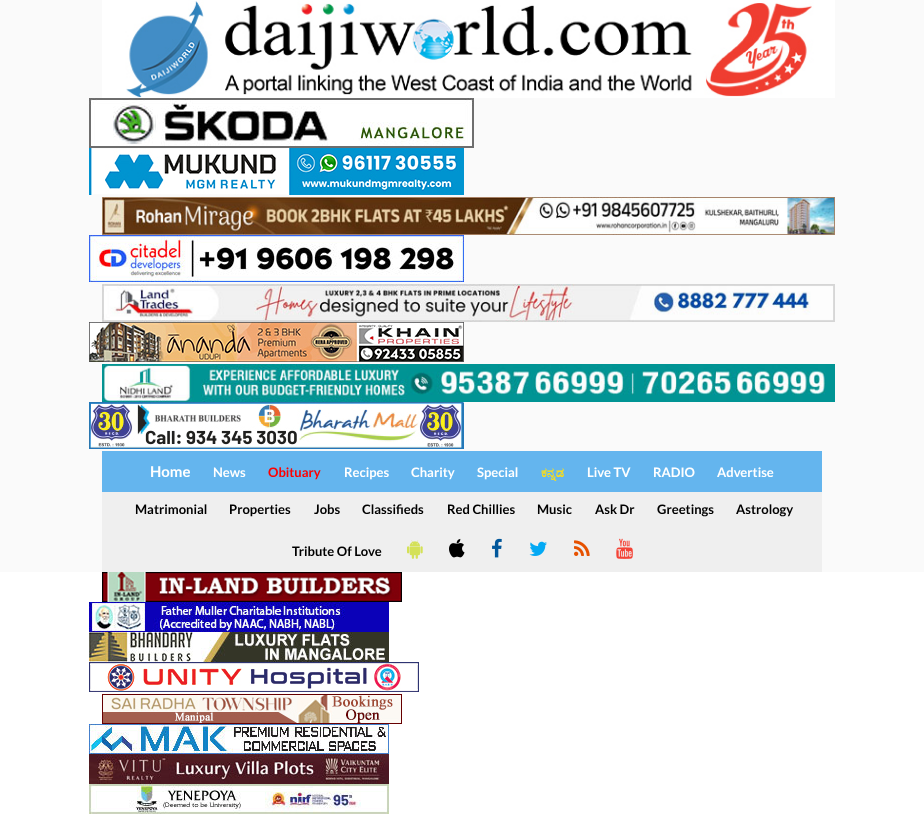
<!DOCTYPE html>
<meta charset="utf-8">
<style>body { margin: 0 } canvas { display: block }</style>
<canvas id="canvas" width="924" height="814"></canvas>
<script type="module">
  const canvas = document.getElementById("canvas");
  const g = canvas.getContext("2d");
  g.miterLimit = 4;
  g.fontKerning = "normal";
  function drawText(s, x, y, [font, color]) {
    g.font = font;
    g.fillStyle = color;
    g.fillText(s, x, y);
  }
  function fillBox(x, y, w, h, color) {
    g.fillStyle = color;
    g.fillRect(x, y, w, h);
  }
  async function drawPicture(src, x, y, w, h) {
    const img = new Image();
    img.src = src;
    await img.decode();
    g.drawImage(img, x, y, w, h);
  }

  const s1 = ["bold 15px Lato", "#FFFFFF"];
  const s2 = ["bold 13px Lato", "#FFFFFF"];
  const s3 = ["bold 13px Lato", "#FF0000"];
  const s4 = ["bold 13px FreeSerif", "#FEDF15"];
  const s5 = ["bold 13px Lato", "#000000"];

  fillBox(0, 0, 924, 814, "#FFFFFF");
  fillBox(0, 0, 924, 572, "#FAFAFA");
  await drawPicture("pic1.png", 102, 0, 733, 98);
  await drawPicture("pic2.png", 89, 98, 385, 50);
  await drawPicture("pic3.png", 89, 148, 375, 47);
  await drawPicture("pic4.png", 102, 197, 733, 38);
  await drawPicture("pic5.png", 89, 235, 375, 47);
  await drawPicture("pic6.png", 102, 284, 733, 38);
  await drawPicture("pic7.png", 89, 322, 375, 40);
  await drawPicture("pic8.png", 102, 364, 733, 38);
  await drawPicture("pic9.png", 89, 402, 375, 47);
  fillBox(102, 451, 720, 41, "#64B5EE");
  drawText("Home", 150, 477, s1);
  drawText("News", 213, 477, s2);
  drawText("Obituary", 268, 477, s3);
  drawText("Recipes", 344, 477, s2);
  drawText("Charity", 411, 477, s2);
  drawText("Special", 477, 477, s2);
  drawText("ಕನ್ನಡ", 541, 477, s4);
  drawText("Live TV", 587, 477, s2);
  drawText("RADIO", 653, 477, s2);
  drawText("Advertise", 717, 477, s2);
  fillBox(102, 492, 720, 80, "#EFEFEF");
  drawText("Matrimonial", 135, 514, s5);
  drawText("Properties", 229, 514, s5);
  drawText("Jobs", 314, 514, s5);
  drawText("Classifieds", 362, 514, s5);
  drawText("Red Chillies", 447, 514, s5);
  drawText("Music", 537, 514, s5);
  drawText("Ask Dr", 595, 514, s5);
  drawText("Greetings", 657, 514, s5);
  drawText("Astrology", 736, 514, s5);
  drawText("Tribute Of Love", 292, 556, s5);
  await drawPicture("pic10.png", 407, 540, 16, 19);
  await drawPicture("pic11.png", 449, 538, 16, 20);
  await drawPicture("pic12.png", 492, 538, 10, 20);
  await drawPicture("pic13.png", 529, 541, 18, 15);
  await drawPicture("pic14.png", 574, 540, 16, 16);
  await drawPicture("pic15.png", 616, 538, 17, 21);
  await drawPicture("pic16.png", 102, 572, 300, 30);
  await drawPicture("pic17.png", 89, 602, 300, 30);
  await drawPicture("pic18.png", 89, 632, 300, 30);
  await drawPicture("pic19.png", 89, 662, 330, 30);
  await drawPicture("pic20.png", 102, 694, 300, 30);
  await drawPicture("pic21.png", 89, 724, 300, 30);
  await drawPicture("pic22.png", 89, 754, 300, 30);
  await drawPicture("pic23.png", 89, 784, 300, 30);
</script>
